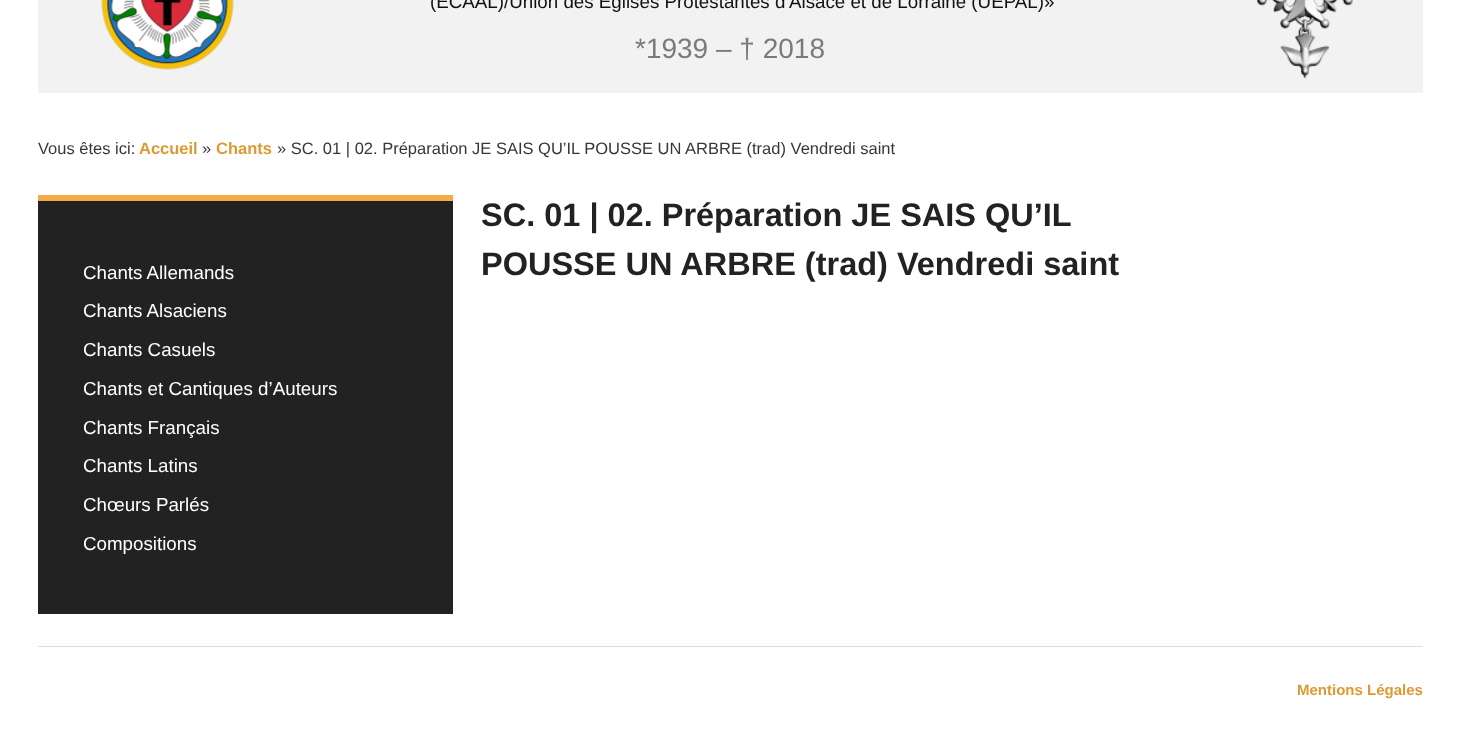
<!DOCTYPE html>
<meta charset="utf-8">
<style>body { margin: 0 } canvas { display: block }</style>
<canvas id="canvas" width="1460" height="737"></canvas>
<script type="module">
  const canvas = document.getElementById("canvas");
  const g = canvas.getContext("2d");
  g.miterLimit = 4;
  g.fontKerning = "normal";
  function drawText(s, x, y, [font, color]) {
    g.font = font;
    g.fillStyle = color;
    g.fillText(s, x, y);
  }
  function fillBox(x, y, w, h, color) {
    g.fillStyle = color;
    g.fillRect(x, y, w, h);
  }
  async function drawPicture(src, x, y, w, h) {
    const img = new Image();
    img.src = src;
    await img.decode();
    g.drawImage(img, x, y, w, h);
  }

  const s1 = ["18.75px Liberation Sans", "#111111"];
  const s2 = ["28px Liberation Sans", "#7A7A7A"];
  const s3 = ["16.5px Liberation Sans", "#373737"];
  const s4 = ["bold 16.5px Liberation Sans", "#DD9933"];
  const s5 = ["18.75px Liberation Sans", "#FFFFFF"];
  const s6 = ["bold 32.5px Liberation Sans", "#222222"];
  const s7 = ["bold 15px Liberation Sans", "#DD9933"];

  fillBox(0, 0, 1460, 737, "#FFFFFF");
  fillBox(38, 0, 1385, 93, "#F2F2F2");
  await drawPicture("pic1.png", 101, 0, 133, 70);
  drawText("(ECAAL)/Union des Eglises Protestantes d'Alsace et de Lorraine (UEPAL)»", 430, 8, s1);
  await drawPicture("pic2.png", 1256, 0, 97, 79);
  drawText("*1939 – † 2018", 635, 58, s2);
  drawText("Vous êtes ici:", 38, 154, s3);
  drawText("Accueil", 139, 154, s4);
  drawText("»", 202, 154, s3);
  drawText("Chants", 216, 154, s4);
  drawText("» SC. 01 | 02. Préparation JE SAIS QU’IL POUSSE UN ARBRE (trad) Vendredi saint", 277, 154, s3);
  fillBox(38, 201, 415, 413, "#222222");
  fillBox(38, 195, 415, 6, "#F5AA46");
  drawText("Chants Allemands", 83, 279, s5);
  drawText("Chants Alsaciens", 83, 317, s5);
  drawText("Chants Casuels", 83, 356, s5);
  drawText("Chants et Cantiques d’Auteurs", 83, 395, s5);
  drawText("Chants Français", 83, 434, s5);
  drawText("Chants Latins", 83, 472, s5);
  drawText("Chœurs Parlés", 83, 511, s5);
  drawText("Compositions", 83, 550, s5);
  drawText("SC. 01 | 02. Préparation JE SAIS QU’IL", 481, 226, s6);
  drawText("POUSSE UN ARBRE (trad) Vendredi saint", 481, 275, s6);
  fillBox(38, 646, 1385, 1, "#DDDDDD");
  drawText("Mentions Légales", 1297, 695, s7);
</script>
